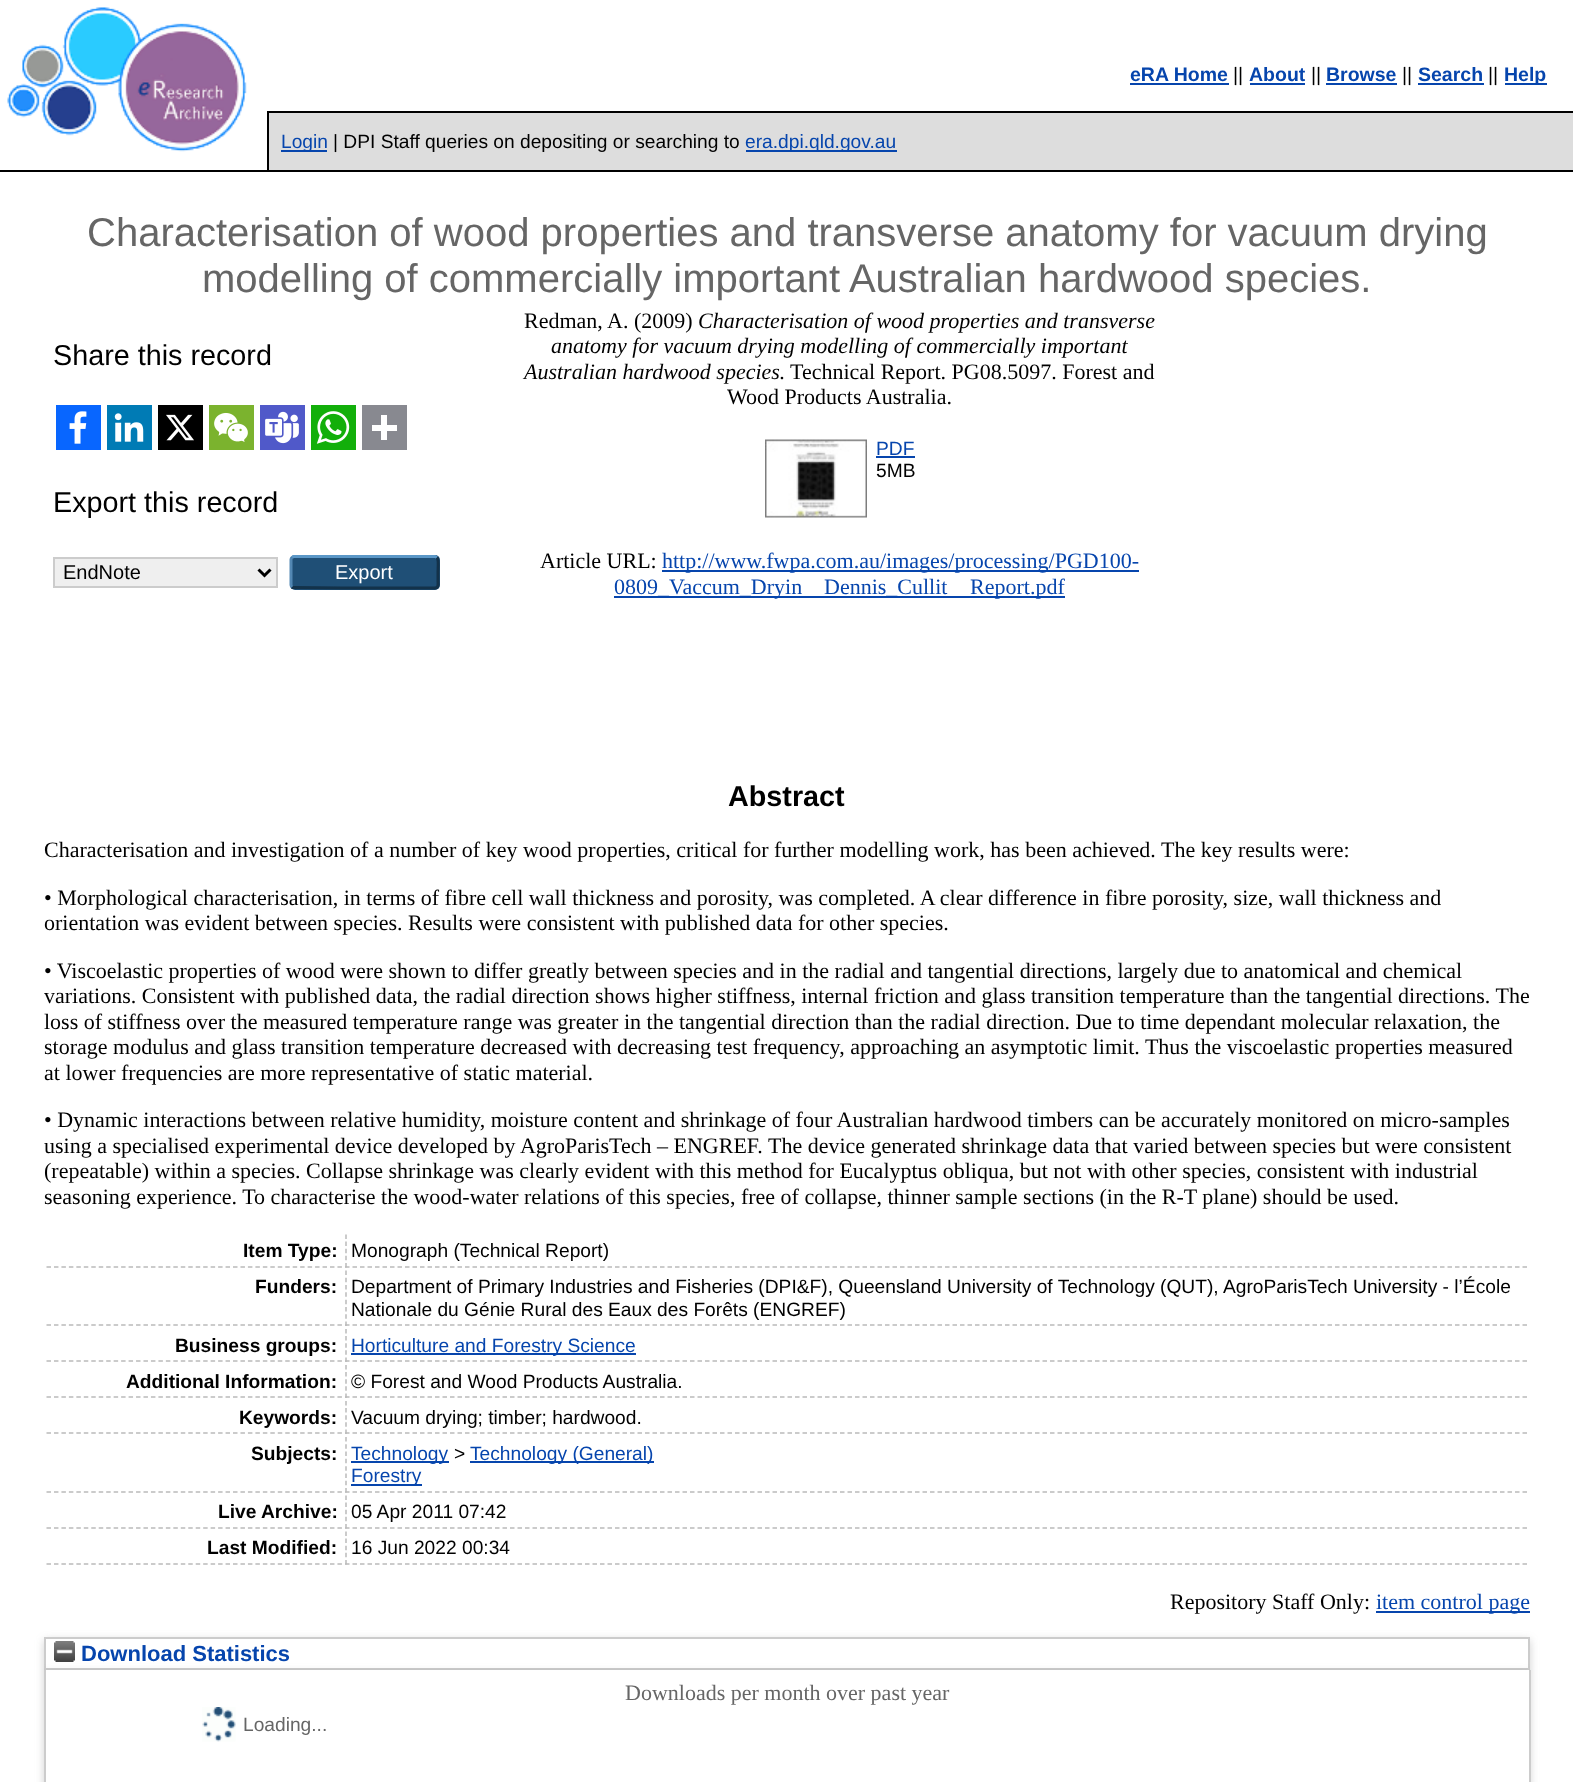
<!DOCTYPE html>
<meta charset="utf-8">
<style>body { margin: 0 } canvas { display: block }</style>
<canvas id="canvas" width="1573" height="1782"></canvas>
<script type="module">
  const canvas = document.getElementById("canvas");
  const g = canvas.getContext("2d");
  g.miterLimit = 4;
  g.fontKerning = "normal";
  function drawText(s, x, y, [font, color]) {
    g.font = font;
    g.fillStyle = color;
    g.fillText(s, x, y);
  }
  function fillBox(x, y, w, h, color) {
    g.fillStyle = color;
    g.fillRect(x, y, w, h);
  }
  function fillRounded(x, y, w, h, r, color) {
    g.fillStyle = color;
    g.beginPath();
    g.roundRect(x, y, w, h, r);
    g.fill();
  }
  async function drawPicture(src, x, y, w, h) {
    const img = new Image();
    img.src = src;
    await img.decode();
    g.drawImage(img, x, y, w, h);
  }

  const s1 = ["bold 19.5px Liberation Sans", "#0645AD"];
  const s2 = ["19.5px Liberation Sans", "#000000"];
  const s3 = ["19.2px Liberation Sans", "#0645AD"];
  const s4 = ["19.2px Liberation Sans", "#000000"];
  const s5 = ["40px Liberation Sans", "#666666"];
  const s6 = ["22px Liberation Serif", "#000000"];
  const s7 = ["italic 22px Liberation Serif", "#000000"];
  const s8 = ["22px Liberation Serif", "#0645AD"];
  const s9 = ["bold 28.75px Liberation Sans", "#000000"];
  const s10 = ["bold 19.2px Liberation Sans", "#000000"];
  const s11 = ["28.75px Liberation Sans", "#000000"];
  const s12 = ["20px Liberation Sans", "#000000"];
  const s13 = ["20px Liberation Sans", "#FFFFFF"];
  const s14 = ["bold 22px Liberation Sans", "#0645AD"];
  const s15 = ["22px Liberation Serif", "#666666"];
  const s16 = ["19.2px Liberation Sans", "#666666"];

  fillBox(0, 0, 1573, 1782, "#FFFFFF");
  fillBox(0, 170, 1573, 2, "#000000");
  await drawPicture("pic1.png", 7, 7, 240, 145);
  drawText("eRA Home", 1130, 81, s1);
  fillBox(1130, 83, 99, 2, "#0645AD");
  drawText("||", 1233, 81, s2);
  drawText("About", 1249, 81, s1);
  fillBox(1250, 83, 55, 2, "#0645AD");
  drawText("||", 1311, 81, s2);
  drawText("Browse", 1326, 81, s1);
  fillBox(1326, 83, 71, 2, "#0645AD");
  drawText("||", 1402, 81, s2);
  drawText("Search", 1418, 81, s1);
  fillBox(1418, 83, 66, 2, "#0645AD");
  drawText("||", 1488, 81, s2);
  fillBox(1505, 83, 42, 2, "#0645AD");
  drawText("Help", 1504, 81, s1);
  fillBox(269, 113, 1304, 57, "#DDDDDD");
  fillBox(267, 111, 1306, 2, "#000000");
  fillBox(267, 111, 2, 59, "#000000");
  fillBox(281, 150, 46, 2, "#0645AD");
  drawText("Login", 281, 148, s3);
  drawText("| DPI Staff queries on depositing or searching to", 333, 148, s4);
  fillBox(746, 150, 151, 2, "#0645AD");
  drawText("era.dpi.qld.gov.au", 745, 148, s3);
  drawText("Characterisation of wood properties and transverse anatomy for vacuum drying", 87, 246, s5);
  drawText("modelling of commercially important Australian hardwood species.", 202, 292, s5);
  drawText("Redman, A. (2009)", 524, 328, s6);
  drawText("Characterisation of wood properties and transverse", 698, 328, s7);
  drawText("anatomy for vacuum drying modelling of commercially important", 551, 353, s7);
  drawText("Australian hardwood species.", 524, 379, s7);
  drawText("Technical Report. PG08.5097. Forest and", 790, 379, s6);
  drawText("Wood Products Australia.", 727, 404, s6);
  await drawPicture("pic2.png", 765, 439, 102, 79);
  drawText("PDF", 876, 455, s3);
  fillBox(876, 456, 39, 2, "#0645AD");
  drawText("5MB", 876, 477, s4);
  drawText("Article URL:", 540, 568, s6);
  fillBox(662, 570, 477, 2, "#0645AD");
  drawText("http://www.fwpa.com.au/images/processing/PGD100-", 662, 568, s8);
  fillBox(614, 596, 451, 2, "#0645AD");
  drawText("0809_Vaccum_Dryin", 614, 594, s8);
  drawText("Dennis_Cullit", 824, 594, s8);
  drawText("Report.pdf", 970, 594, s8);
  drawText("Abstract", 728, 806, s9);
  drawText("Characterisation and investigation of a number of key wood properties, critical for further modelling work, has been achieved. The key results were:", 44, 857, s6);
  drawText("• Morphological characterisation, in terms of fibre cell wall thickness and porosity, was completed. A clear difference in fibre porosity, size, wall thickness and", 44, 905, s6);
  drawText("orientation was evident between species. Results were consistent with published data for other species.", 44, 930, s6);
  drawText("• Viscoelastic properties of wood were shown to differ greatly between species and in the radial and tangential directions, largely due to anatomical and chemical", 44, 978, s6);
  drawText("variations. Consistent with published data, the radial direction shows higher stiffness, internal friction and glass transition temperature than the tangential directions. The", 44, 1003, s6);
  drawText("loss of stiffness over the measured temperature range was greater in the tangential direction than the radial direction. Due to time dependant molecular relaxation, the", 44, 1029, s6);
  drawText("storage modulus and glass transition temperature decreased with decreasing test frequency, approaching an asymptotic limit. Thus the viscoelastic properties measured", 44, 1054, s6);
  drawText("at lower frequencies are more representative of static material.", 44, 1080, s6);
  drawText("• Dynamic interactions between relative humidity, moisture content and shrinkage of four Australian hardwood timbers can be accurately monitored on micro-samples", 44, 1127, s6);
  drawText("using a specialised experimental device developed by AgroParisTech – ENGREF. The device generated shrinkage data that varied between species but were consistent", 44, 1153, s6);
  drawText("(repeatable) within a species. Collapse shrinkage was clearly evident with this method for Eucalyptus obliqua, but not with other species, consistent with industrial", 44, 1178, s6);
  drawText("seasoning experience. To characterise the wood-water relations of this species, free of collapse, thinner sample sections (in the R-T plane) should be used.", 44, 1204, s6);
  g.beginPath();
  g.moveTo(46.5, 1267);
  g.lineTo(342, 1267);
  g.strokeStyle = "#BBBBBB";
  g.lineWidth = 1.5;
  g.setLineDash([4.5, 2.96]);
  g.stroke();
  drawText("Item Type:", 243, 1257, s10);
  g.beginPath();
  g.moveTo(345, 1267);
  g.lineTo(1527, 1267);
  g.setLineDash([4.5, 3]);
  g.stroke();
  g.beginPath();
  g.moveTo(346, 1234.5);
  g.lineTo(346, 1267.5);
  g.setLineDash([4.5, 2.62]);
  g.stroke();
  drawText("Monograph (Technical Report)", 351, 1257, s4);
  g.beginPath();
  g.moveTo(46.5, 1325);
  g.lineTo(342, 1325);
  g.setLineDash([4.5, 2.96]);
  g.stroke();
  drawText("Funders:", 255, 1293, s10);
  g.beginPath();
  g.moveTo(345, 1325);
  g.lineTo(1527, 1325);
  g.setLineDash([4.5, 3]);
  g.stroke();
  g.beginPath();
  g.moveTo(346, 1270.5);
  g.lineTo(346, 1326);
  g.setLineDash([4.5, 2.79]);
  g.stroke();
  drawText("Department of Primary Industries and Fisheries (DPI&F), Queensland University of Technology (QUT), AgroParisTech University - l’École", 351, 1293, s4);
  drawText("Nationale du Génie Rural des Eaux des Forêts (ENGREF)", 351, 1316, s4);
  g.beginPath();
  g.moveTo(46.5, 1361);
  g.lineTo(342, 1361);
  g.setLineDash([4.5, 2.96]);
  g.stroke();
  drawText("Business groups:", 175, 1352, s10);
  g.beginPath();
  g.moveTo(345, 1361);
  g.lineTo(1527, 1361);
  g.setLineDash([4.5, 3]);
  g.stroke();
  g.beginPath();
  g.moveTo(346, 1329);
  g.lineTo(346, 1362);
  g.setLineDash([4.5, 2.62]);
  g.stroke();
  fillBox(351, 1353, 285, 2, "#0645AD");
  drawText("Horticulture and Forestry Science", 351, 1352, s3);
  g.beginPath();
  g.moveTo(46.5, 1397);
  g.lineTo(342, 1397);
  g.setLineDash([4.5, 2.96]);
  g.stroke();
  drawText("Additional Information:", 126, 1388, s10);
  g.beginPath();
  g.moveTo(345, 1397);
  g.lineTo(1527, 1397);
  g.setLineDash([4.5, 3]);
  g.stroke();
  g.beginPath();
  g.moveTo(346, 1365);
  g.lineTo(346, 1398);
  g.setLineDash([4.5, 2.62]);
  g.stroke();
  drawText("© Forest and Wood Products Australia.", 351, 1388, s4);
  g.beginPath();
  g.moveTo(46.5, 1433);
  g.lineTo(342, 1433);
  g.setLineDash([4.5, 2.96]);
  g.stroke();
  drawText("Keywords:", 239, 1424, s10);
  g.beginPath();
  g.moveTo(345, 1433);
  g.lineTo(1527, 1433);
  g.setLineDash([4.5, 3]);
  g.stroke();
  g.beginPath();
  g.moveTo(346, 1401);
  g.lineTo(346, 1434);
  g.setLineDash([4.5, 2.62]);
  g.stroke();
  drawText("Vacuum drying; timber; hardwood.", 351, 1424, s4);
  g.beginPath();
  g.moveTo(46.5, 1492);
  g.lineTo(342, 1492);
  g.setLineDash([4.5, 2.96]);
  g.stroke();
  drawText("Subjects:", 251, 1460, s10);
  g.beginPath();
  g.moveTo(345, 1492);
  g.lineTo(1527, 1492);
  g.setLineDash([4.5, 3]);
  g.stroke();
  g.beginPath();
  g.moveTo(346, 1437);
  g.lineTo(346, 1492.5);
  g.setLineDash([4.5, 2.79]);
  g.stroke();
  fillBox(351, 1461, 98, 2, "#0645AD");
  drawText("Technology", 351, 1460, s3);
  drawText(">", 454, 1460, s4);
  fillBox(470, 1461, 184, 2, "#0645AD");
  drawText("Technology (General)", 470, 1460, s3);
  fillBox(351, 1484, 71, 2, "#0645AD");
  drawText("Forestry", 351, 1482, s3);
  g.beginPath();
  g.moveTo(46.5, 1528);
  g.lineTo(342, 1528);
  g.setLineDash([4.5, 2.96]);
  g.stroke();
  drawText("Live Archive:", 218, 1518, s10);
  g.beginPath();
  g.moveTo(345, 1528);
  g.lineTo(1527, 1528);
  g.setLineDash([4.5, 3]);
  g.stroke();
  g.beginPath();
  g.moveTo(346, 1495.5);
  g.lineTo(346, 1528.5);
  g.setLineDash([4.5, 2.62]);
  g.stroke();
  drawText("05 Apr 2011 07:42", 351, 1518, s4);
  g.beginPath();
  g.moveTo(46.5, 1564);
  g.lineTo(342, 1564);
  g.setLineDash([4.5, 2.96]);
  g.stroke();
  drawText("Last Modified:", 207, 1554, s10);
  g.beginPath();
  g.moveTo(345, 1564);
  g.lineTo(1527, 1564);
  g.setLineDash([4.5, 3]);
  g.stroke();
  g.beginPath();
  g.moveTo(346, 1531.5);
  g.lineTo(346, 1564.5);
  g.setLineDash([4.5, 2.62]);
  g.stroke();
  drawText("16 Jun 2022 00:34", 351, 1554, s4);
  drawText("Repository Staff Only:", 1170, 1609, s6);
  fillBox(1376, 1611, 154, 2, "#0645AD");
  drawText("item control page", 1376, 1609, s8);
  drawText("Share this record", 53, 365, s11);
  fillBox(56, 405, 45, 45, "#0866FF");
  fillBox(107, 405, 45, 45, "#007BB5");
  fillBox(158, 405, 45, 45, "#000000");
  fillBox(209, 405, 45, 45, "#7BB32E");
  fillBox(260, 405, 45, 45, "#5059C9");
  fillBox(311, 405, 45, 45, "#12AF0A");
  fillBox(362, 405, 45, 45, "#888990");
  await drawPicture("pic3.png", 69, 411, 18, 33);
  await drawPicture("pic4.png", 114, 413, 30, 29);
  await drawPicture("pic5.png", 166, 414, 28, 27);
  await drawPicture("pic6.png", 214, 412, 34, 30);
  await drawPicture("pic7.png", 265, 411, 34, 33);
  await drawPicture("pic8.png", 316, 411, 34, 33);
  fillBox(381, 415, 6, 25, "#FFFFFF");
  fillBox(372, 425, 25, 6, "#FFFFFF");
  drawText("Export this record", 53, 512, s11);
  g.fillStyle = "#EFEFEF";
  g.beginPath();
  g.rect(54, 558, 223, 29);
  g.fill();
  g.strokeStyle = "#CCCCCC";
  g.lineWidth = 2;
  g.setLineDash([]);
  g.stroke();
  g.beginPath();
  g.moveTo(258.5, 569.5);
  g.lineTo(264.5, 575.5);
  g.lineTo(270.5, 569.5);
  g.strokeStyle = "#000000";
  g.lineWidth = 3;
  g.stroke();
  drawText("EndNote", 63, 579, s12);
  fillRounded(290, 555, 150, 35, 5, "#1F4F76");
  g.beginPath();
  g.moveTo(292, 557.5);
  g.lineTo(293.5, 556.5);
  g.lineTo(411.5, 556.5);
  g.lineTo(435, 556.5);
  g.lineTo(437, 557.5);
  g.strokeStyle = "#5B97C7";
  g.stroke();
  g.beginPath();
  g.moveTo(437, 557.5);
  g.bezierCurveTo(439, 559.5, 438, 569.5, 438, 572);
  g.lineTo(438, 581);
  g.bezierCurveTo(438, 583, 439, 588, 435, 588);
  g.lineTo(341, 588);
  g.lineTo(292.5, 587.5);
  g.lineTo(292, 587);
  g.strokeStyle = "#13324A";
  g.stroke();
  g.beginPath();
  g.moveTo(292, 587);
  g.bezierCurveTo(291.5, 586.5, 291, 586, 291, 585);
  g.lineTo(291, 559.5);
  g.bezierCurveTo(291, 558.5, 291.5, 558, 292, 557.5);
  g.strokeStyle = "#5287B3";
  g.stroke();
  drawText("Export", 335, 579, s13);
  g.fillStyle = "rgba(100, 100, 100, 0.3)";
  g.filter = "blur(4.5px)";
  g.beginPath();
  g.rect(44, 1640, 1486, 33);
  g.fill();
  g.filter = "none";
  g.fillStyle = "#FFFFFF";
  g.beginPath();
  g.rect(45, 1638, 1484, 31);
  g.fill();
  g.strokeStyle = "#CCCCCC";
  g.lineWidth = 2;
  g.stroke();
  g.fillStyle = "rgba(100, 100, 100, 0.3)";
  g.filter = "blur(4.5px)";
  g.beginPath();
  g.rect(44, 1673, 1486, 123);
  g.fill();
  g.filter = "none";
  await drawPicture("pic9.png", 54, 1641, 21, 21);
  drawText("Download Statistics", 81, 1661, s14);
  fillBox(46, 1670, 1483, 112, "#FFFFFF");
  fillBox(1529, 1670, 2, 112, "#CCCCCC");
  fillBox(44, 1670, 2, 112, "#CCCCCC");
  drawText("Downloads per month over past year", 625, 1700, s15);
  await drawPicture("pic10.png", 202, 1707, 34, 35);
  drawText("Loading...", 243, 1731, s16);
</script>
